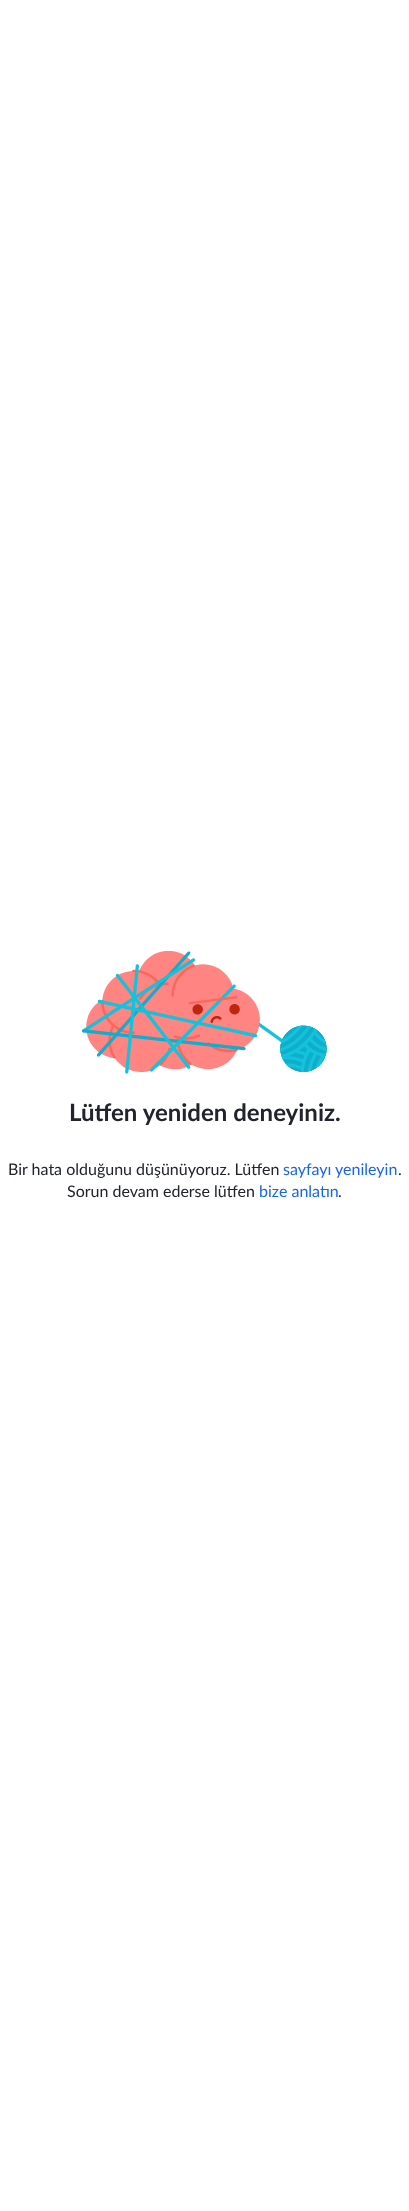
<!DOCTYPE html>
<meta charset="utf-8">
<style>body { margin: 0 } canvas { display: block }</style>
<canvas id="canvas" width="409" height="2211"></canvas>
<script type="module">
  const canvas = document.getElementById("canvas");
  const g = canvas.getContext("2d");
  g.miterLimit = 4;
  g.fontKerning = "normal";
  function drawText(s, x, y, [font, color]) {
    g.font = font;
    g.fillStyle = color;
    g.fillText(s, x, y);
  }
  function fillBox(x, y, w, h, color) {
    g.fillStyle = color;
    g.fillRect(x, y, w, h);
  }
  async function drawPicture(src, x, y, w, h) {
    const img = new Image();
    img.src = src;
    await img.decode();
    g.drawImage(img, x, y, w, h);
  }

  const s1 = ["bold 24px Lato", "#21242C"];
  const s2 = ["16px Lato", "#21242C"];
  const s3 = ["16px Lato", "#1865F2"];

  fillBox(0, 0, 409, 2211, "#FFFFFF");
  await drawPicture("pic1.png", 82, 950, 245, 124);
  drawText("Lütfen yeniden deneyiniz.", 69, 1121, s1);
  drawText("Bir hata olduğunu düşünüyoruz. Lütfen", 8, 1175, s2);
  drawText("sayfayı yenileyin", 283, 1175, s3);
  drawText(".", 398, 1175, s2);
  drawText("Sorun devam ederse lütfen", 67, 1197, s2);
  drawText("bize anlatın", 259, 1197, s3);
  drawText(".", 338, 1197, s2);
</script>
